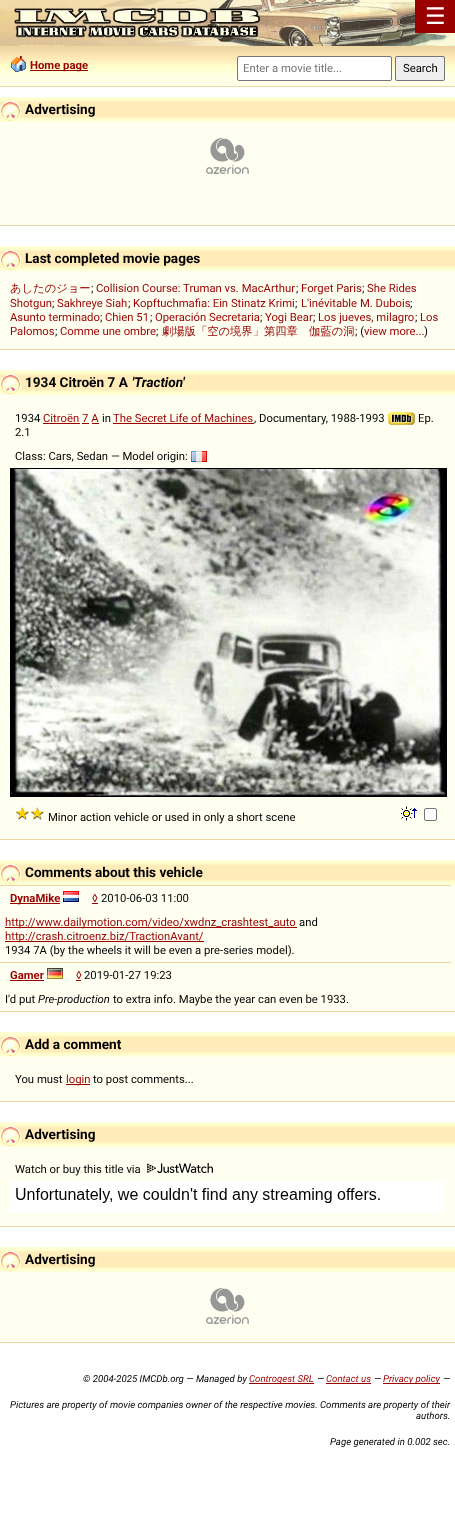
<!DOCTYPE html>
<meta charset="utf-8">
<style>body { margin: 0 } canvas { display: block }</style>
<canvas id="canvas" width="455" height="1513"></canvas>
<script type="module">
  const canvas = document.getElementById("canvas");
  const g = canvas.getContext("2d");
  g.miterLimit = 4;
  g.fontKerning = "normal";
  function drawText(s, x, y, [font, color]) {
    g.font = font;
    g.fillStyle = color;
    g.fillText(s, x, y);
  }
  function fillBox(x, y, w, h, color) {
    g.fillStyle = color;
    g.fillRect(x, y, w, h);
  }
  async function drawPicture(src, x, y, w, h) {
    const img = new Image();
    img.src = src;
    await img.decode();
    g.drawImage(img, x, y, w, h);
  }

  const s1 = ["23px DejaVu Sans", "#FFFFFF"];
  const s2 = ["bold 11.3px Roboto", "#990000"];
  const s3 = ["11.3px Roboto", "#757575"];
  const s4 = ["11.3px Roboto", "#000000"];
  const s5 = ["bold 13.6px Roboto", "#000000"];
  const s6 = ["500 11.3px WenQuanYi Zen Hei", "#990000"];
  const s7 = ["11.3px Roboto", "#990000"];
  const s8 = ["italic bold 13.6px Roboto", "#000000"];
  const s9 = ["italic 11.3px Roboto", "#000000"];
  const s10 = ["italic 9.65px Roboto", "#000000"];
  const s11 = ["italic 9.65px Roboto", "#990000"];

  fillBox(0, 0, 455, 1513, "#FFFFFF");
  await drawPicture("pic1.png", 0, 0, 455, 46);
  fillBox(415, 0, 40, 33, "#990000");
  drawText("☰", 425, 24, s1);
  fillBox(0, 76, 455, 10, "#FFFFE7");
  await drawPicture("pic2.png", 0, 46, 455, 30);
  fillBox(0, 86, 455, 1, "#EFD6A3");
  await drawPicture("pic3.png", 11, 56, 15, 16);
  fillBox(30, 70, 58, 1, "#990000");
  drawText("Home page", 30, 69, s2);
  g.fillStyle = "#FFFFFF";
  g.beginPath();
  g.roundRect(237.5, 56.5, 154, 24, 1.5);
  g.fill();
  g.strokeStyle = "#767676";
  g.stroke();
  drawText("Enter a movie title...", 243, 72, s3);
  g.fillStyle = "#EFEFEF";
  g.beginPath();
  g.roundRect(395.5, 56.5, 49, 24, 1.5);
  g.fill();
  g.stroke();
  drawText("Search", 403, 72, s4);
  fillBox(0, 122, 455, 103, "#FFFFF1");
  fillBox(0, 225, 455, 1, "#EFD6A3");
  fillBox(0, 97, 455, 25, "#FFFFD7");
  await drawPicture("pic4.png", 0, 99, 455, 21);
  await drawPicture("pic5.png", 0, 101, 21, 20);
  drawText("Advertising", 25, 114, s5);
  await drawPicture("pic6.png", 206, 138, 43, 36);
  fillBox(0, 271, 455, 78, "#FFFFF1");
  fillBox(0, 349, 455, 1, "#EFD6A3");
  fillBox(0, 246, 455, 25, "#FFFFD7");
  await drawPicture("pic4.png", 0, 248, 455, 21);
  await drawPicture("pic5.png", 0, 250, 21, 20);
  drawText("Last completed movie pages", 25, 263, s5);
  drawText("あしたのジョー", 10, 292, s6);
  drawText(";", 91, 292, s4);
  drawText("Collision Course: Truman vs. MacArthur", 96, 292, s7);
  drawText(";", 296, 292, s4);
  drawText("Forget Paris", 301, 292, s7);
  drawText(";", 362, 292, s4);
  drawText("She Rides", 367, 292, s7);
  drawText("Shotgun", 10, 307, s7);
  drawText(";", 52, 307, s4);
  drawText("Sakhreye Siah", 57, 307, s7);
  drawText(";", 128, 307, s4);
  drawText("Kopftuchmafia: Ein Stinatz Krimi", 133, 307, s7);
  drawText(";", 295, 307, s4);
  drawText("L'inévitable M. Dubois", 301, 307, s7);
  drawText(";", 410, 307, s4);
  drawText("Asunto terminado", 10, 321, s7);
  drawText(";", 100, 321, s4);
  drawText("Chien 51", 105, 321, s7);
  drawText(";", 150, 321, s4);
  drawText("Operación Secretaria", 155, 321, s7);
  drawText(";", 260, 321, s4);
  drawText("Yogi Bear", 265, 321, s7);
  drawText(";", 313, 321, s4);
  drawText("Los jueves, milagro", 318, 321, s7);
  drawText(";", 415, 321, s4);
  drawText("Los", 420, 321, s7);
  drawText("Palomos", 10, 335, s7);
  drawText(";", 55, 335, s4);
  drawText("Comme une ombre", 60, 335, s7);
  drawText(";", 156, 335, s4);
  drawText("劇場版「空の境界」第四章　伽藍の洞", 162, 335, s6);
  drawText("; (", 355, 335, s4);
  drawText("view more...", 364, 335, s7);
  drawText(")", 424, 335, s4);
  fillBox(0, 395, 455, 444, "#FFFFF1");
  fillBox(0, 839, 455, 1, "#EFD6A3");
  fillBox(0, 370, 455, 25, "#FFFFD7");
  await drawPicture("pic4.png", 0, 372, 455, 21);
  await drawPicture("pic5.png", 0, 374, 21, 20);
  drawText("1934 Citroën 7 A", 25, 387, s5);
  drawText("'Traction'", 132, 387, s8);
  drawText("1934", 15, 422, s4);
  drawText("Citroën 7 A", 43, 422, s7);
  fillBox(43, 423, 37, 1, "#990000");
  drawText("in", 102, 422, s4);
  drawText("The Secret Life of Machines", 113, 422, s7);
  fillBox(113, 423, 141, 1, "#990000");
  drawText(", Documentary, 1988-1993", 254, 422, s4);
  await drawPicture("pic7.png", 388, 412, 27, 13);
  drawText("Ep.", 418, 422, s4);
  fillBox(82, 423, 7, 1, "#990000");
  fillBox(92, 423, 7, 1, "#990000");
  drawText("2.1", 15, 436, s4);
  drawText("Class: Cars, Sedan — Model origin:", 15, 460, s4);
  await drawPicture("pic8.png", 191, 451, 16, 11);
  g.strokeStyle = "#000000";
  g.strokeRect(10.5, 468.5, 436, 328);
  await drawPicture("pic9.png", 11, 469, 435, 327);
  await drawPicture("pic10.png", 16, 807, 13, 13);
  await drawPicture("pic10.png", 31, 807, 13, 13);
  drawText("Minor action vehicle or used in only a short scene", 48, 821, s4);
  await drawPicture("pic11.png", 401, 806, 16, 15);
  g.fillStyle = "#FFFFFF";
  g.beginPath();
  g.roundRect(424.5, 808.5, 12, 12, 1.5);
  g.fill();
  g.strokeStyle = "#767676";
  g.stroke();
  fillBox(0, 885, 455, 126, "#FFFFF1");
  fillBox(0, 1011, 455, 1, "#EFD6A3");
  fillBox(0, 860, 455, 25, "#FFFFD7");
  await drawPicture("pic4.png", 0, 862, 455, 21);
  await drawPicture("pic5.png", 0, 864, 21, 20);
  drawText("Comments about this vehicle", 25, 877, s5);
  fillBox(0, 885, 451, 1, "#EFD6A3");
  fillBox(10, 903, 50, 1, "#990000");
  drawText("DynaMike", 10, 902, s2);
  await drawPicture("pic12.png", 63, 891, 16, 11);
  drawText("◊", 92, 902, s7);
  fillBox(92, 903, 6, 1, "#990000");
  drawText("2010-06-03 11:00", 101, 902, s4);
  fillBox(5, 927, 292, 1, "#990000");
  drawText("http://www.dailymotion.com/video/xwdnz_crashtest_auto", 5, 926, s7);
  drawText("and", 299, 926, s4);
  fillBox(5, 941, 199, 1, "#990000");
  drawText("http://crash.citroenz.biz/TractionAvant/", 5, 940, s7);
  drawText("1934 7A (by the wheels it will be even a pre-series model).", 5, 954, s4);
  fillBox(0, 962, 451, 1, "#EFD6A3");
  drawText("Gamer", 10, 979, s2);
  fillBox(10, 980, 34, 1, "#990000");
  await drawPicture("pic13.png", 47, 968, 16, 11);
  drawText("◊", 76, 979, s7);
  fillBox(76, 980, 5, 1, "#990000");
  drawText("2019-01-27 19:23", 84, 979, s4);
  drawText("I'd put", 5, 1003, s4);
  drawText("Pre-production", 38, 1003, s9);
  drawText("to extra info. Maybe the year can even be 1933.", 113, 1003, s4);
  fillBox(0, 1057, 455, 44, "#FFFFF1");
  fillBox(0, 1101, 455, 1, "#EFD6A3");
  fillBox(0, 1032, 455, 25, "#FFFFD7");
  await drawPicture("pic4.png", 0, 1034, 455, 21);
  await drawPicture("pic5.png", 0, 1036, 21, 20);
  drawText("Add a comment", 25, 1049, s5);
  drawText("You must", 15, 1083, s4);
  fillBox(66, 1084, 24, 1, "#990000");
  drawText("login", 66, 1083, s7);
  drawText("to post comments...", 93, 1083, s4);
  fillBox(0, 1147, 455, 79, "#FFFFF1");
  fillBox(0, 1226, 455, 1, "#EFD6A3");
  fillBox(0, 1122, 455, 25, "#FFFFD7");
  await drawPicture("pic4.png", 0, 1124, 455, 21);
  await drawPicture("pic5.png", 0, 1126, 21, 20);
  drawText("Advertising", 25, 1139, s5);
  drawText("Watch or buy this title via", 15, 1173, s4);
  await drawPicture("pic14.png", 147, 1163, 66, 10);
  await drawPicture("pic15.png", 10, 1181, 435, 32);
  fillBox(0, 1272, 455, 70, "#FFFFF1");
  fillBox(0, 1342, 455, 1, "#EFD6A3");
  fillBox(0, 1247, 455, 25, "#FFFFD7");
  await drawPicture("pic4.png", 0, 1249, 455, 21);
  await drawPicture("pic5.png", 0, 1251, 21, 20);
  drawText("Advertising", 25, 1264, s5);
  await drawPicture("pic6.png", 206, 1288, 43, 36);
  drawText("© 2004-2025 IMCDb.org — Managed by", 83, 1382, s10);
  fillBox(249, 1383, 65, 1, "#990000");
  drawText("Controgest SRL", 249, 1382, s11);
  drawText("—", 317, 1382, s10);
  drawText("Contact us", 326, 1382, s11);
  fillBox(326, 1383, 45, 1, "#990000");
  drawText("—", 374, 1382, s10);
  fillBox(383, 1383, 57, 1, "#990000");
  drawText("Privacy policy", 383, 1382, s11);
  drawText("—", 443, 1382, s10);
  drawText("Pictures are property of movie companies owner of the respective movies. Comments are property of their", 10, 1408, s10);
  drawText("authors.", 416, 1419, s10);
  drawText("Page generated in 0.002 sec.", 330, 1445, s10);
</script>
